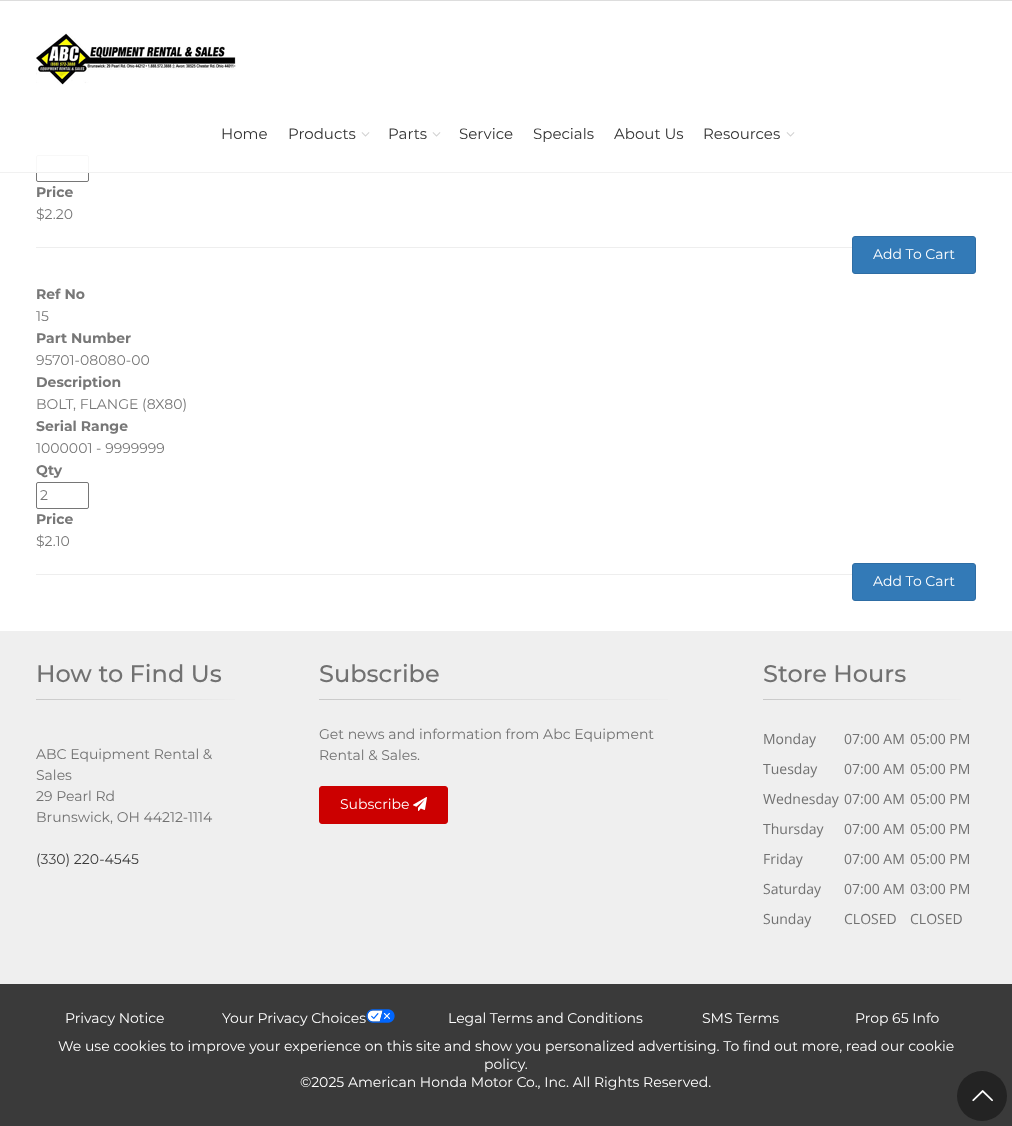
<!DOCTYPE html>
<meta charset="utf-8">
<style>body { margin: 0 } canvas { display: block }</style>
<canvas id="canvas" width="1012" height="1126"></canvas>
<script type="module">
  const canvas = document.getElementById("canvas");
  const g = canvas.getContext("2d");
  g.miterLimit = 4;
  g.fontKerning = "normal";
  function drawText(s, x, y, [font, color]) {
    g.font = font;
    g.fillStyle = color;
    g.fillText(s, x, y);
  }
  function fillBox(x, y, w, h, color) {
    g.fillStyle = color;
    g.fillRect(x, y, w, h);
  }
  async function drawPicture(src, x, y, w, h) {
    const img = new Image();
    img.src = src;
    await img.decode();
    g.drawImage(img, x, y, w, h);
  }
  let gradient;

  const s1 = ["15px Montserrat", "#333333"];
  const s2 = ["bold 14px Montserrat", "#777777"];
  const s3 = ["14px Montserrat", "#777777"];
  const s4 = ["14px Montserrat", "#FFFFFF"];
  const s5 = ["500 24px Montserrat", "#717171"];
  const s6 = ["14px Montserrat", "#717171"];
  const s7 = ["14px Montserrat", "#3A3A3A"];
  const s8 = ["14px Open Sans", "#717171"];

  fillBox(0, 0, 1012, 1126, "#FFFFFF");
  g.beginPath();
  g.roundRect(36.5, 155.5, 52, 26, 1.5);
  g.strokeStyle = "#767676";
  g.stroke();
  fillBox(36, 155, 53, 17, "rgba(255, 255, 255, 0.95)");
  fillBox(0, 0, 1012, 1, "#DDDDDD");
  fillBox(0, 172, 1012, 1, "#F1F1F1");
  await drawPicture("pic1.png", 36, 33, 200, 52);
  drawText("Home", 221, 139, s1);
  drawText("Products", 288, 139, s1);
  await drawPicture("pic2.png", 361, 132, 9, 5);
  drawText("Parts", 388, 139, s1);
  await drawPicture("pic2.png", 432, 132, 9, 5);
  drawText("Service", 459, 139, s1);
  drawText("Specials", 533, 139, s1);
  drawText("About Us", 614, 139, s1);
  drawText("Resources", 703, 139, s1);
  await drawPicture("pic2.png", 786, 132, 9, 5);
  drawText("Price", 36, 197, s2);
  drawText("$2.20", 36, 219, s3);
  fillBox(36, 247, 816, 1, "#EEEEEE");
  g.fillStyle = "#337AB7";
  g.beginPath();
  g.roundRect(852.5, 236.5, 123, 37, 2.5);
  g.fill();
  g.strokeStyle = "#2E6DA4";
  g.stroke();
  drawText("Add To Cart", 873, 259, s4);
  drawText("Ref No", 36, 299, s2);
  drawText("15", 36, 321, s3);
  drawText("Part Number", 36, 343, s2);
  drawText("95701-08080-00", 36, 365, s3);
  drawText("Description", 36, 387, s2);
  drawText("BOLT, FLANGE (8X80)", 36, 409, s3);
  drawText("Serial Range", 36, 431, s2);
  drawText("1000001 - 9999999", 36, 453, s3);
  drawText("Qty", 36, 475, s2);
  g.beginPath();
  g.roundRect(36.5, 482.5, 52, 26, 1.5);
  g.strokeStyle = "#767676";
  g.stroke();
  drawText("2", 40, 500, s3);
  drawText("Price", 36, 524, s2);
  drawText("$2.10", 36, 546, s3);
  fillBox(36, 574, 816, 1, "#EEEEEE");
  g.fillStyle = "#337AB7";
  g.beginPath();
  g.roundRect(852.5, 563.5, 123, 37, 2.5);
  g.fill();
  g.strokeStyle = "#2E6DA4";
  g.stroke();
  drawText("Add To Cart", 873, 586, s4);
  fillBox(0, 631, 1012, 353, "#EFEFEF");
  drawText("How to Find Us", 36, 682, s5);
  gradient = g.createLinearGradient(36, 700, 249, 700);
  gradient.addColorStop(0, "#C9C9C9");
  gradient.addColorStop(1, "#EFEFEF");
  g.fillStyle = gradient;
  g.fillRect(36, 699, 199, 1);
  drawText("ABC Equipment Rental &", 36, 759, s6);
  drawText("Sales", 36, 780, s6);
  drawText("29 Pearl Rd", 36, 801, s6);
  drawText("Brunswick, OH 44212-1114", 36, 822, s6);
  drawText("(330) 220-4545", 36, 864, s7);
  drawText("Subscribe", 319, 682, s5);
  gradient = g.createLinearGradient(319, 700, 693, 700);
  gradient.addColorStop(0, "#C9C9C9");
  gradient.addColorStop(1, "#EFEFEF");
  g.fillStyle = gradient;
  g.fillRect(319, 699, 349, 1);
  drawText("Get news and information from Abc Equipment", 319, 739, s6);
  drawText("Rental & Sales.", 319, 760, s6);
  g.fillStyle = "#CC0000";
  g.beginPath();
  g.roundRect(319.5, 786.5, 128, 37, 2.5);
  g.fill();
  g.strokeStyle = "#CC0000";
  g.stroke();
  drawText("Subscribe", 340, 809, s4);
  await drawPicture("pic3.png", 413, 797, 14, 14);
  drawText("Store Hours", 763, 682, s5);
  gradient = g.createLinearGradient(763, 700, 975, 700);
  gradient.addColorStop(0, "#C9C9C9");
  gradient.addColorStop(1, "#EFEFEF");
  g.fillStyle = gradient;
  g.fillRect(763, 699, 198, 1);
  drawText("Monday", 763, 744, s8);
  drawText("07:00 AM", 844, 744, s8);
  drawText("05:00 PM", 910, 744, s8);
  drawText("Tuesday", 763, 774, s8);
  drawText("07:00 AM", 844, 774, s8);
  drawText("05:00 PM", 910, 774, s8);
  drawText("Wednesday", 763, 804, s8);
  drawText("07:00 AM", 844, 804, s8);
  drawText("05:00 PM", 910, 804, s8);
  drawText("Thursday", 763, 834, s8);
  drawText("07:00 AM", 844, 834, s8);
  drawText("05:00 PM", 910, 834, s8);
  drawText("Friday", 763, 864, s8);
  drawText("07:00 AM", 844, 864, s8);
  drawText("05:00 PM", 910, 864, s8);
  drawText("Saturday", 763, 894, s8);
  drawText("07:00 AM", 844, 894, s8);
  drawText("03:00 PM", 910, 894, s8);
  drawText("Sunday", 763, 924, s8);
  drawText("CLOSED", 844, 924, s8);
  drawText("CLOSED", 910, 924, s8);
  fillBox(0, 984, 1012, 142, "#3A3A3A");
  drawText("Privacy Notice", 65, 1023, s4);
  drawText("Your Privacy Choices", 222, 1023, s4);
  await drawPicture("pic4.png", 366, 1009, 29, 14);
  drawText("Legal Terms and Conditions", 448, 1023, s4);
  drawText("SMS Terms", 702, 1023, s4);
  drawText("Prop 65 Info", 855, 1023, s4);
  drawText("We use cookies to improve your experience on this site and show you personalized advertising. To find out more, read our cookie", 58, 1051, s4);
  drawText("policy.", 484, 1069, s4);
  drawText("©2025 American Honda Motor Co., Inc. All Rights Reserved.", 300, 1087, s4);
  g.fillStyle = "#232323";
  g.beginPath();
  g.arc(982, 1096, 25, 0, Math.PI * 2);
  g.fill();
  await drawPicture("pic5.png", 972, 1090, 21, 12);
</script>
